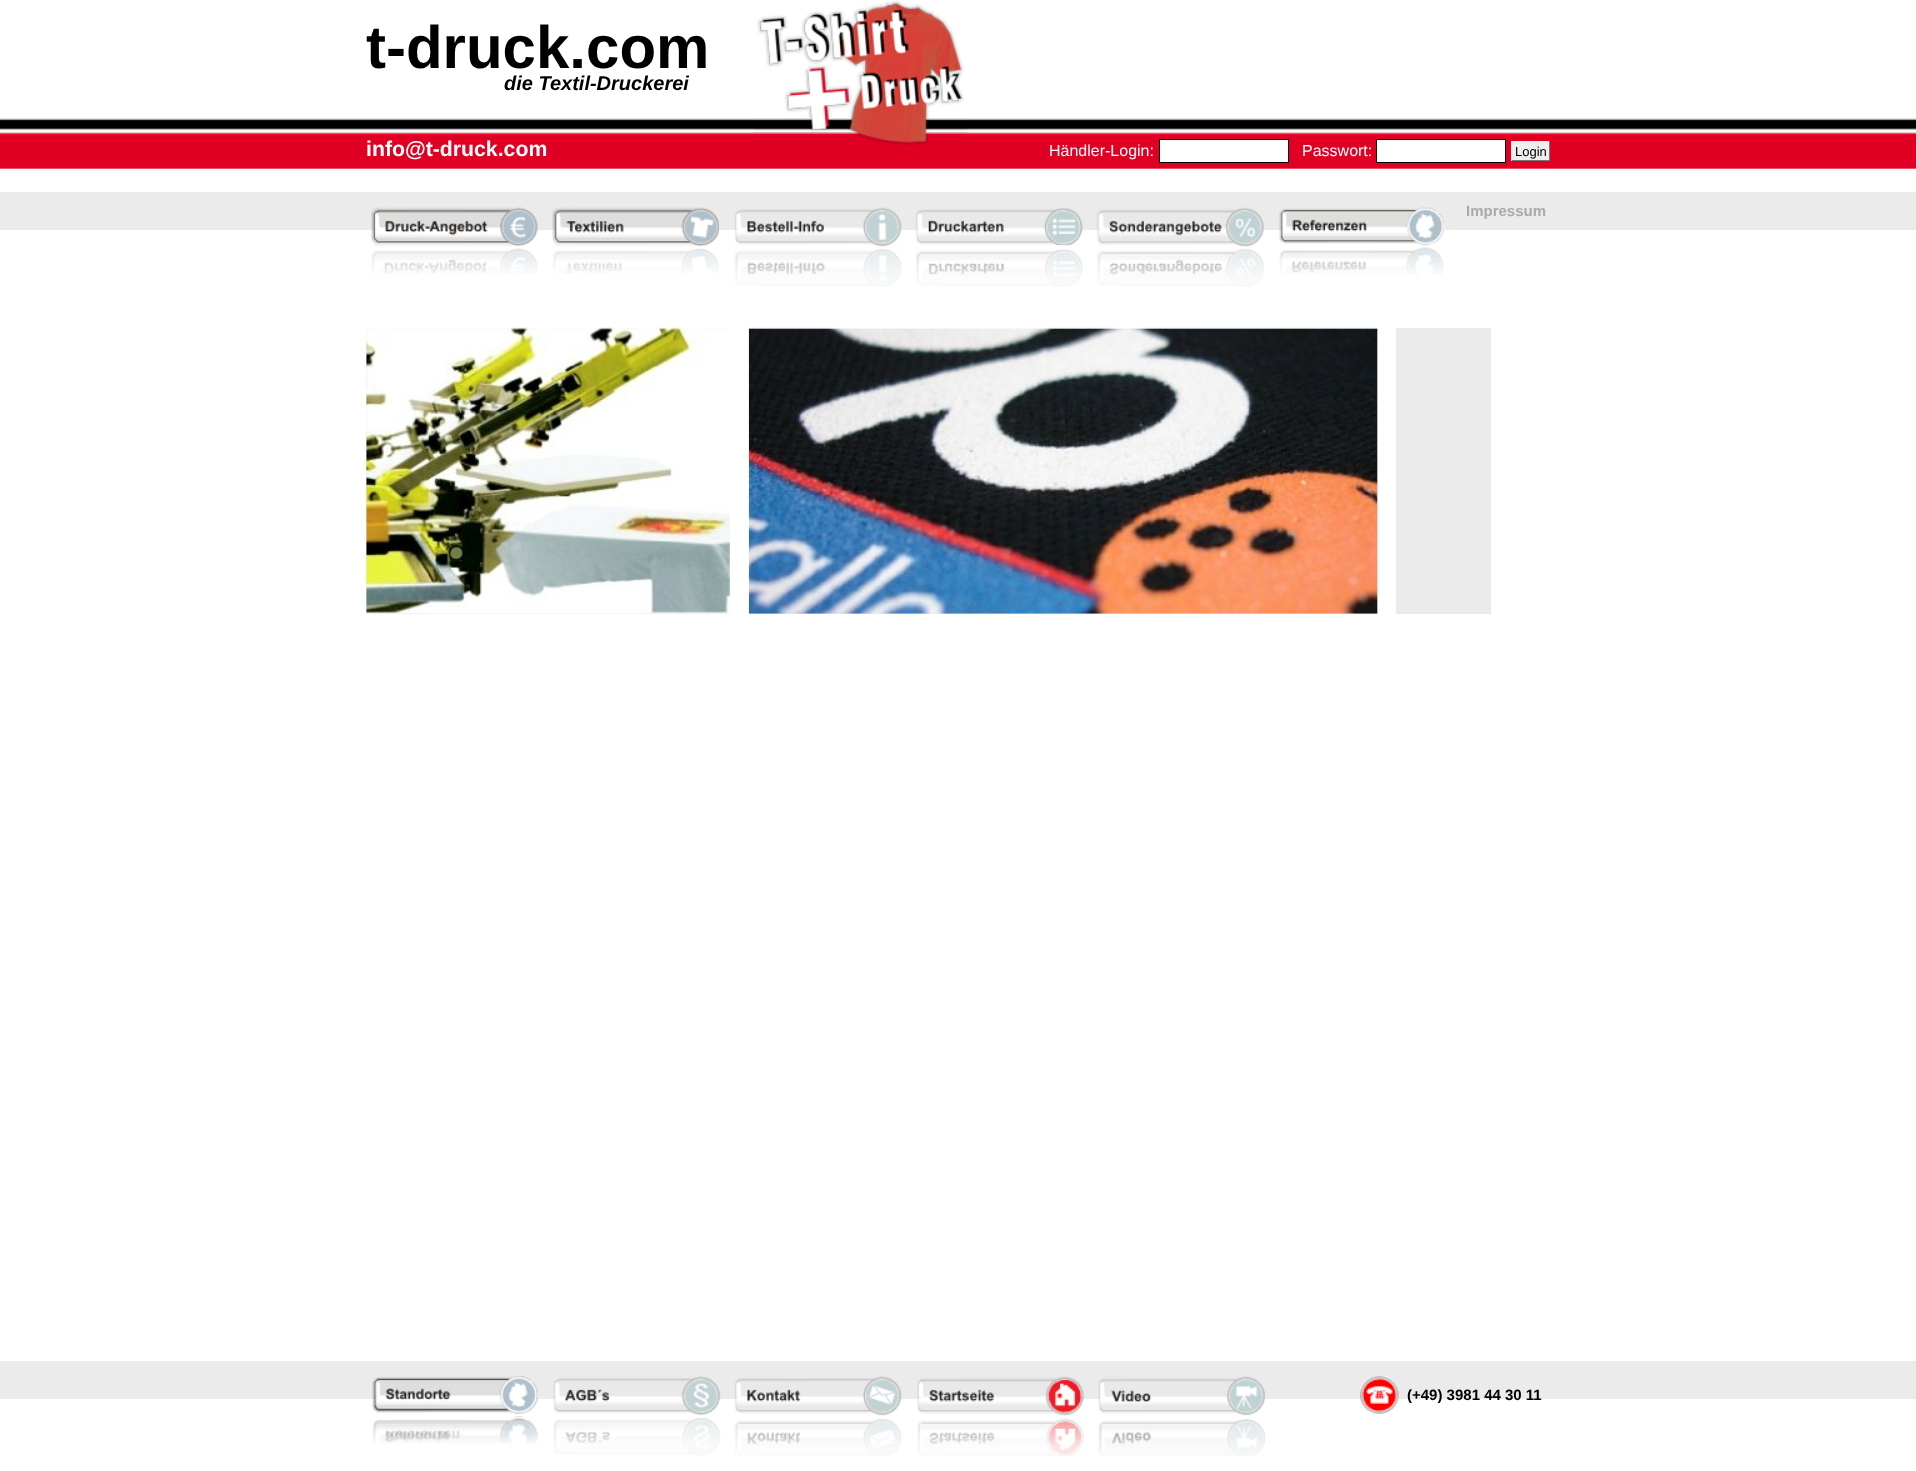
<svg xmlns="http://www.w3.org/2000/svg" width="1916" height="1471">
<style>
.a{font:bold 60px Liberation Sans;fill:#000}
.b{font:italic bold 20px Liberation Sans;fill:#000}
.c{font:bold 21.25px Liberation Sans;fill:#fff}
.d{font:16px Liberation Sans;fill:#fff}
.e{font:13px Liberation Sans;fill:#000}
.f{font:bold 15px Liberation Sans;fill:#aaa}
.g{font:bold 15px Liberation Sans;fill:#000}
</style>
<rect width="100%" height="100%" fill="#fff"/>
<image href="1.png" x="0" y="118" width="1916" height="52"/>
<image href="2.png" x="753" y="0" width="215" height="146"/>
<path fill="#fff" stroke="#000" d="M1159.5 139.5h129v23H1159.5z"/>
<path fill="#fff" stroke="#000" d="M1376.5 139.5h129v23H1376.5z"/>
<path fill="#efefef" d="M1512 141h37v19H1512z"/>
<path fill="#777" d="M1549 141h1v20H1549z"/>
<path fill="#777" d="M1511 160h39v1H1511z"/>
<path fill="#eee" d="M1511 141h1v20H1511z"/>
<path fill="#ebebeb" d="M0 192h1916v38H0z"/>
<image href="3.png" x="371" y="207" width="167" height="67"/>
<image href="4.png" x="552" y="207" width="167" height="67"/>
<image href="5.png" x="734" y="207" width="168" height="80"/>
<image href="6.png" x="915" y="207" width="168" height="80"/>
<image href="7.png" x="1096" y="207" width="168" height="80"/>
<image href="8.png" x="1279" y="207" width="165" height="68"/>
<path fill="#ebebeb" d="M366 328h364v286H366z"/>
<image href="9.png" x="366" y="327" width="364" height="287"/>
<path fill="#ebebeb" d="M749 328h629v286H749z"/>
<image href="10.png" x="748" y="327" width="630" height="287"/>
<path fill="#ebebeb" d="M1396 328h95v286H1396z"/>
<path fill="#ebebeb" d="M0 1361h1916v38H0z"/>
<image href="11.png" x="372" y="1376" width="166" height="68"/>
<image href="12.png" x="553" y="1376" width="168" height="80"/>
<image href="13.png" x="734" y="1376" width="168" height="80"/>
<image href="14.png" x="917" y="1376" width="167" height="80"/>
<image href="15.png" x="1098" y="1376" width="167" height="80"/>
<image href="16.png" x="1360" y="1376" width="39" height="38"/>
<text class="a" x="366" y="68">t-druck.com</text>
<text class="b" x="504" y="90">die Textil-Druckerei</text>
<text class="c" x="366" y="156">info@t-druck.com</text>
<text class="d" x="1049" y="156">Händler-Login:</text>
<text class="d" x="1302" y="156">Passwort:</text>
<text class="e" x="1515" y="156">Login</text>
<text class="f" x="1466" y="216">Impressum</text>
<text class="g" x="1407" y="1400">(+49) 3981 44 30 11</text>
</svg>
